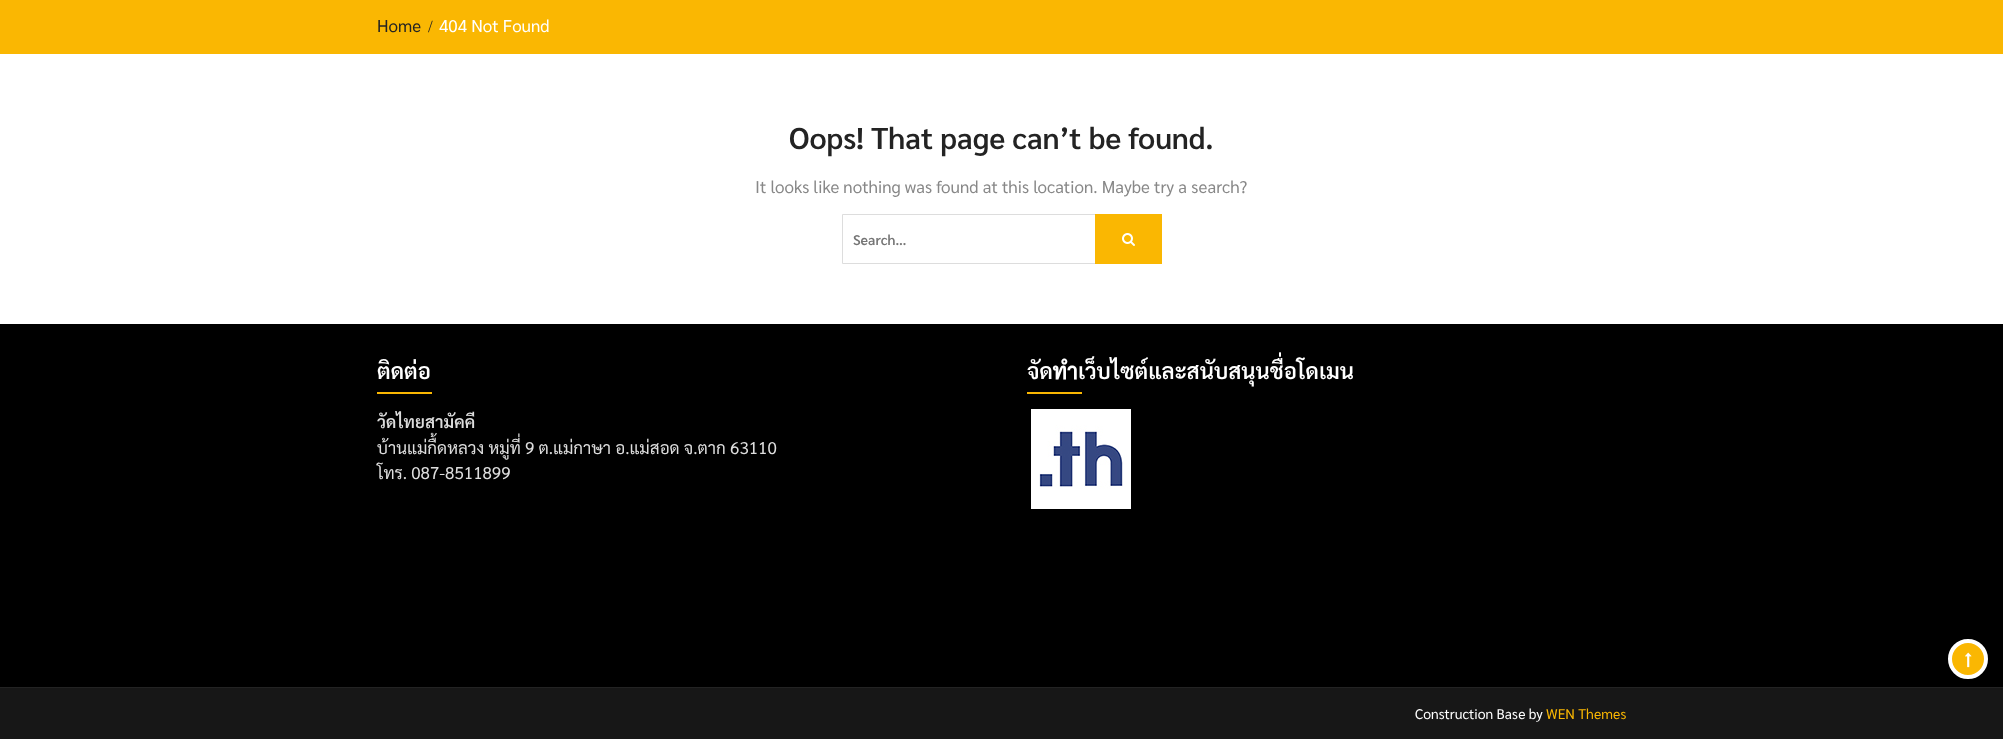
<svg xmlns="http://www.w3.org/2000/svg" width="2003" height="739">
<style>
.a{font:17px Sarabun;fill:#232323}
.b{font:17px Liberation Serif;fill:#232323}
.c{font:17px Sarabun;fill:#fff}
.d{font:600 30px Sarabun;fill:#232323}
.e{font:17px Sarabun;fill:#888}
.f{font:600 14px Sarabun;fill:#757575}
.g{font:600 22px Sarabun;fill:#fff}
.h{font:600 17px Sarabun;fill:#ddd}
.i{font:17px Sarabun;fill:#ddd}
.j{font:14px Sarabun;fill:#fff}
.k{font:14px Sarabun;fill:#fab702}
</style>
<rect width="100%" height="100%" fill="#fff"/>
<path fill="#fab702" d="M0 0h2003v54H0z"/>
<path fill="none" stroke="#ddd" d="M842.5 214.5h319v49H842.5z"/>
<path fill="#fab702" d="M1095 214h67v50H1095z"/>
<image href="1.png" x="1122" y="233" width="13" height="13"/>
<path fill="#000" d="M0 324h2003v363H0z"/>
<path fill="#fab702" d="M377 392h55v2H377z"/>
<path fill="#fab702" d="M1027 392h55v2H1027z"/>
<image href="2.png" x="1031" y="409" width="100" height="100"/>
<path fill="#171717" d="M0 688h2003v51H0z"/>
<path fill="#232323" d="M0 687h2003v1H0z"/>
<circle fill="#fab702" stroke="#fff" stroke-width="4" cx="1968" cy="659" r="18"/>
<image href="3.png" x="1965" y="652" width="7" height="16"/>
<text class="a" x="377" y="32">Home</text>
<text class="b" x="428" y="32">/</text>
<text class="c" x="439" y="32">404 Not Found</text>
<text class="d" x="789" y="149">Oops! That page can’t be found.</text>
<text class="e" x="755" y="193">It looks like nothing was found at this location. Maybe try a search?</text>
<text class="f" x="853" y="245">Search…</text>
<text class="g" x="377" y="379">ติดต่อ</text>
<text class="h" x="377" y="428">วัดไทยสามัคคี</text>
<text class="i" x="377" y="454">บ้านแม่กื้ดหลวง หมู่ที่ 9 ต.แม่กาษา อ.แม่สอด จ.ตาก 63110</text>
<text class="i" x="377" y="479">โทร. 087-8511899</text>
<text class="g" x="1027" y="379">จัดทำเว็บไซต์และสนับสนุนชื่อโดเมน</text>
<text class="j" x="1415" y="719">Construction Base by</text>
<text class="k" x="1546" y="719">WEN Themes</text>
</svg>
